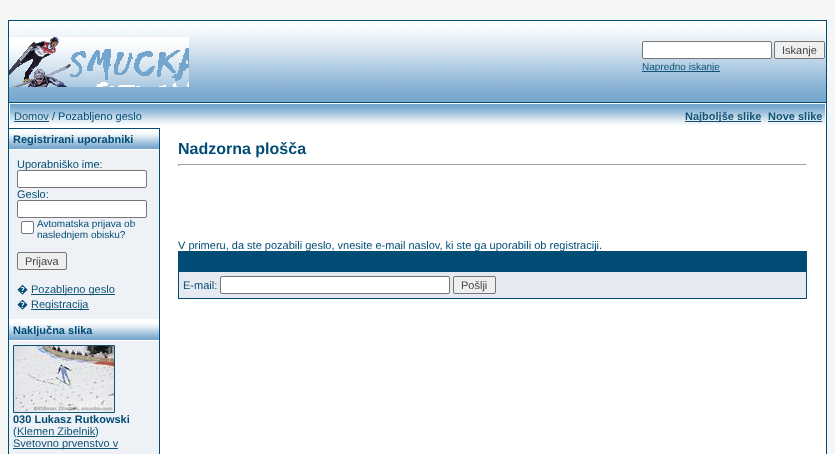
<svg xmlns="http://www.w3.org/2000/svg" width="835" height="454">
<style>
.a{font:11px Liberation Sans;fill:#444}
.b{font:10px Liberation Sans;fill:#0f5475}
.c{font:11px Liberation Sans;fill:#0f5475}
.d{font:11px Liberation Sans;fill:#004c75}
.e{font:bold 11px Liberation Sans;fill:#0f5475}
.f{font:bold 11px Liberation Sans;fill:#004c75}
.g{font:10px Liberation Sans;fill:#004c75}
.h{font:11px Noto Sans;fill:#004c75}
.i{font:bold 16px Liberation Sans;fill:#004c75}
</style>
<rect width="100%" height="100%" fill="#f5f6f6"/>
<image href="1.png" x="9" y="21" width="817" height="81"/>
<path fill="#004c75" d="M8 20h819v1H8z"/>
<path fill="#004c75" d="M8 20h1v82H8z"/>
<image href="2.png" x="9" y="37" width="180" height="50"/>
<path fill="#004c75" d="M826 20h1v82H826z"/>
<rect fill="#fff" stroke="#767676" x="642.5" y="41.5" width="129" height="17" rx="1.5"/>
<rect fill="#efefef" stroke="#767676" x="774.5" y="41.5" width="50" height="17" rx="1.5"/>
<path fill="#0f5475" d="M642 71h78v1H642z"/>
<path fill="#004c75" d="M8 102h819v352H8z"/>
<path fill="#fff" d="M9 103h817v351H9z"/>
<image href="3.png" x="10" y="104" width="815" height="21"/>
<path fill="#0f5475" d="M14 121h35v1H14z"/>
<path fill="#0f5475" d="M685 121h76v1H685z"/>
<path fill="#0f5475" d="M768 121h54v1H768z"/>
<path fill="#eef1f6" d="M9 150h150v304H9z"/>
<path fill="#004c75" d="M9 128h150v1H9z"/>
<image href="4.png" x="9" y="129" width="150" height="20"/>
<rect fill="#fff" stroke="#767676" x="17.5" y="200.5" width="129" height="17" rx="1.5"/>
<rect fill="#fff" stroke="#767676" x="21.5" y="221.5" width="12" height="12" rx="1.5"/>
<rect fill="#efefef" stroke="#767676" x="17.5" y="252.5" width="49" height="17" rx="1.5"/>
<path fill="#0f5475" d="M31 294h84v1H31z"/>
<path fill="#0f5475" d="M31 309h58v1H31z"/>
<path fill="#fff" d="M9 319h150v1H9z"/>
<image href="4.png" x="9" y="320" width="150" height="20"/>
<path fill="#fff" d="M9 340h150v1H9z"/>
<path fill="none" stroke="#0f5475" d="M13.5 345.5h101v67H13.5z"/>
<image href="5.png" x="14" y="346" width="100" height="66"/>
<path fill="#0f5475" d="M17 436h78v1H17z"/>
<path fill="#0f5475" d="M13 448h105v1H13z"/>
<path fill="#004c75" d="M159 128h1v326H159z"/>
<path fill="#9f9f9f" d="M178 164h629v1H178z"/>
<path fill="#eee" d="M806 164h1v2H806z"/>
<path fill="#9f9f9f" d="M178 164h1v2H178z"/>
<path fill="#004c75" d="M178 251h629v48H178z"/>
<path fill="#e5e9f2" d="M179 272h627v26H179z"/>
<rect fill="#fff" stroke="#767676" x="220.5" y="276.5" width="229" height="17" rx="1.5"/>
<rect fill="#efefef" stroke="#767676" x="453.5" y="276.5" width="42" height="17" rx="1.5"/>
<text class="a" x="782" y="54">Iskanje</text>
<text class="b" x="642" y="70">Napredno iskanje</text>
<text class="c" x="14" y="120">Domov</text>
<text class="d" x="52" y="120">/ Pozabljeno geslo</text>
<text class="e" x="685" y="120">Najboljše slike</text>
<text class="e" x="768" y="120">Nove slike</text>
<text class="f" x="13" y="143">Registrirani uporabniki</text>
<text class="d" x="17" y="168">Uporabniško ime:</text>
<rect fill="#fff" stroke="#767676" x="17.5" y="170.5" width="129" height="17" rx="1.5"/>
<text class="d" x="17" y="198">Geslo:</text>
<text class="g" x="37" y="227">Avtomatska prijava ob</text>
<text class="g" x="37" y="238">naslednjem obisku?</text>
<text class="a" x="25" y="265">Prijava</text>
<text class="h" x="17" y="293">�</text>
<text class="c" x="31" y="293">Pozabljeno geslo</text>
<text class="h" x="17" y="308">�</text>
<text class="c" x="31" y="308">Registracija</text>
<text class="f" x="13" y="334">Naključna slika</text>
<text class="f" x="13" y="423">030 Lukasz Rutkowski</text>
<text class="d" x="13" y="435">(</text>
<text class="c" x="17" y="435">Klemen Zibelnik</text>
<text class="d" x="95" y="435">)</text>
<text class="c" x="13" y="447">Svetovno prvenstvo v</text>
<text class="i" x="178" y="154">Nadzorna plošča</text>
<text class="d" x="178" y="249">V primeru, da ste pozabili geslo, vnesite e-mail naslov, ki ste ga uporabili ob registraciji.</text>
<text class="d" x="183" y="289">E-mail:</text>
<text class="a" x="461" y="289">Pošlji</text>
</svg>
